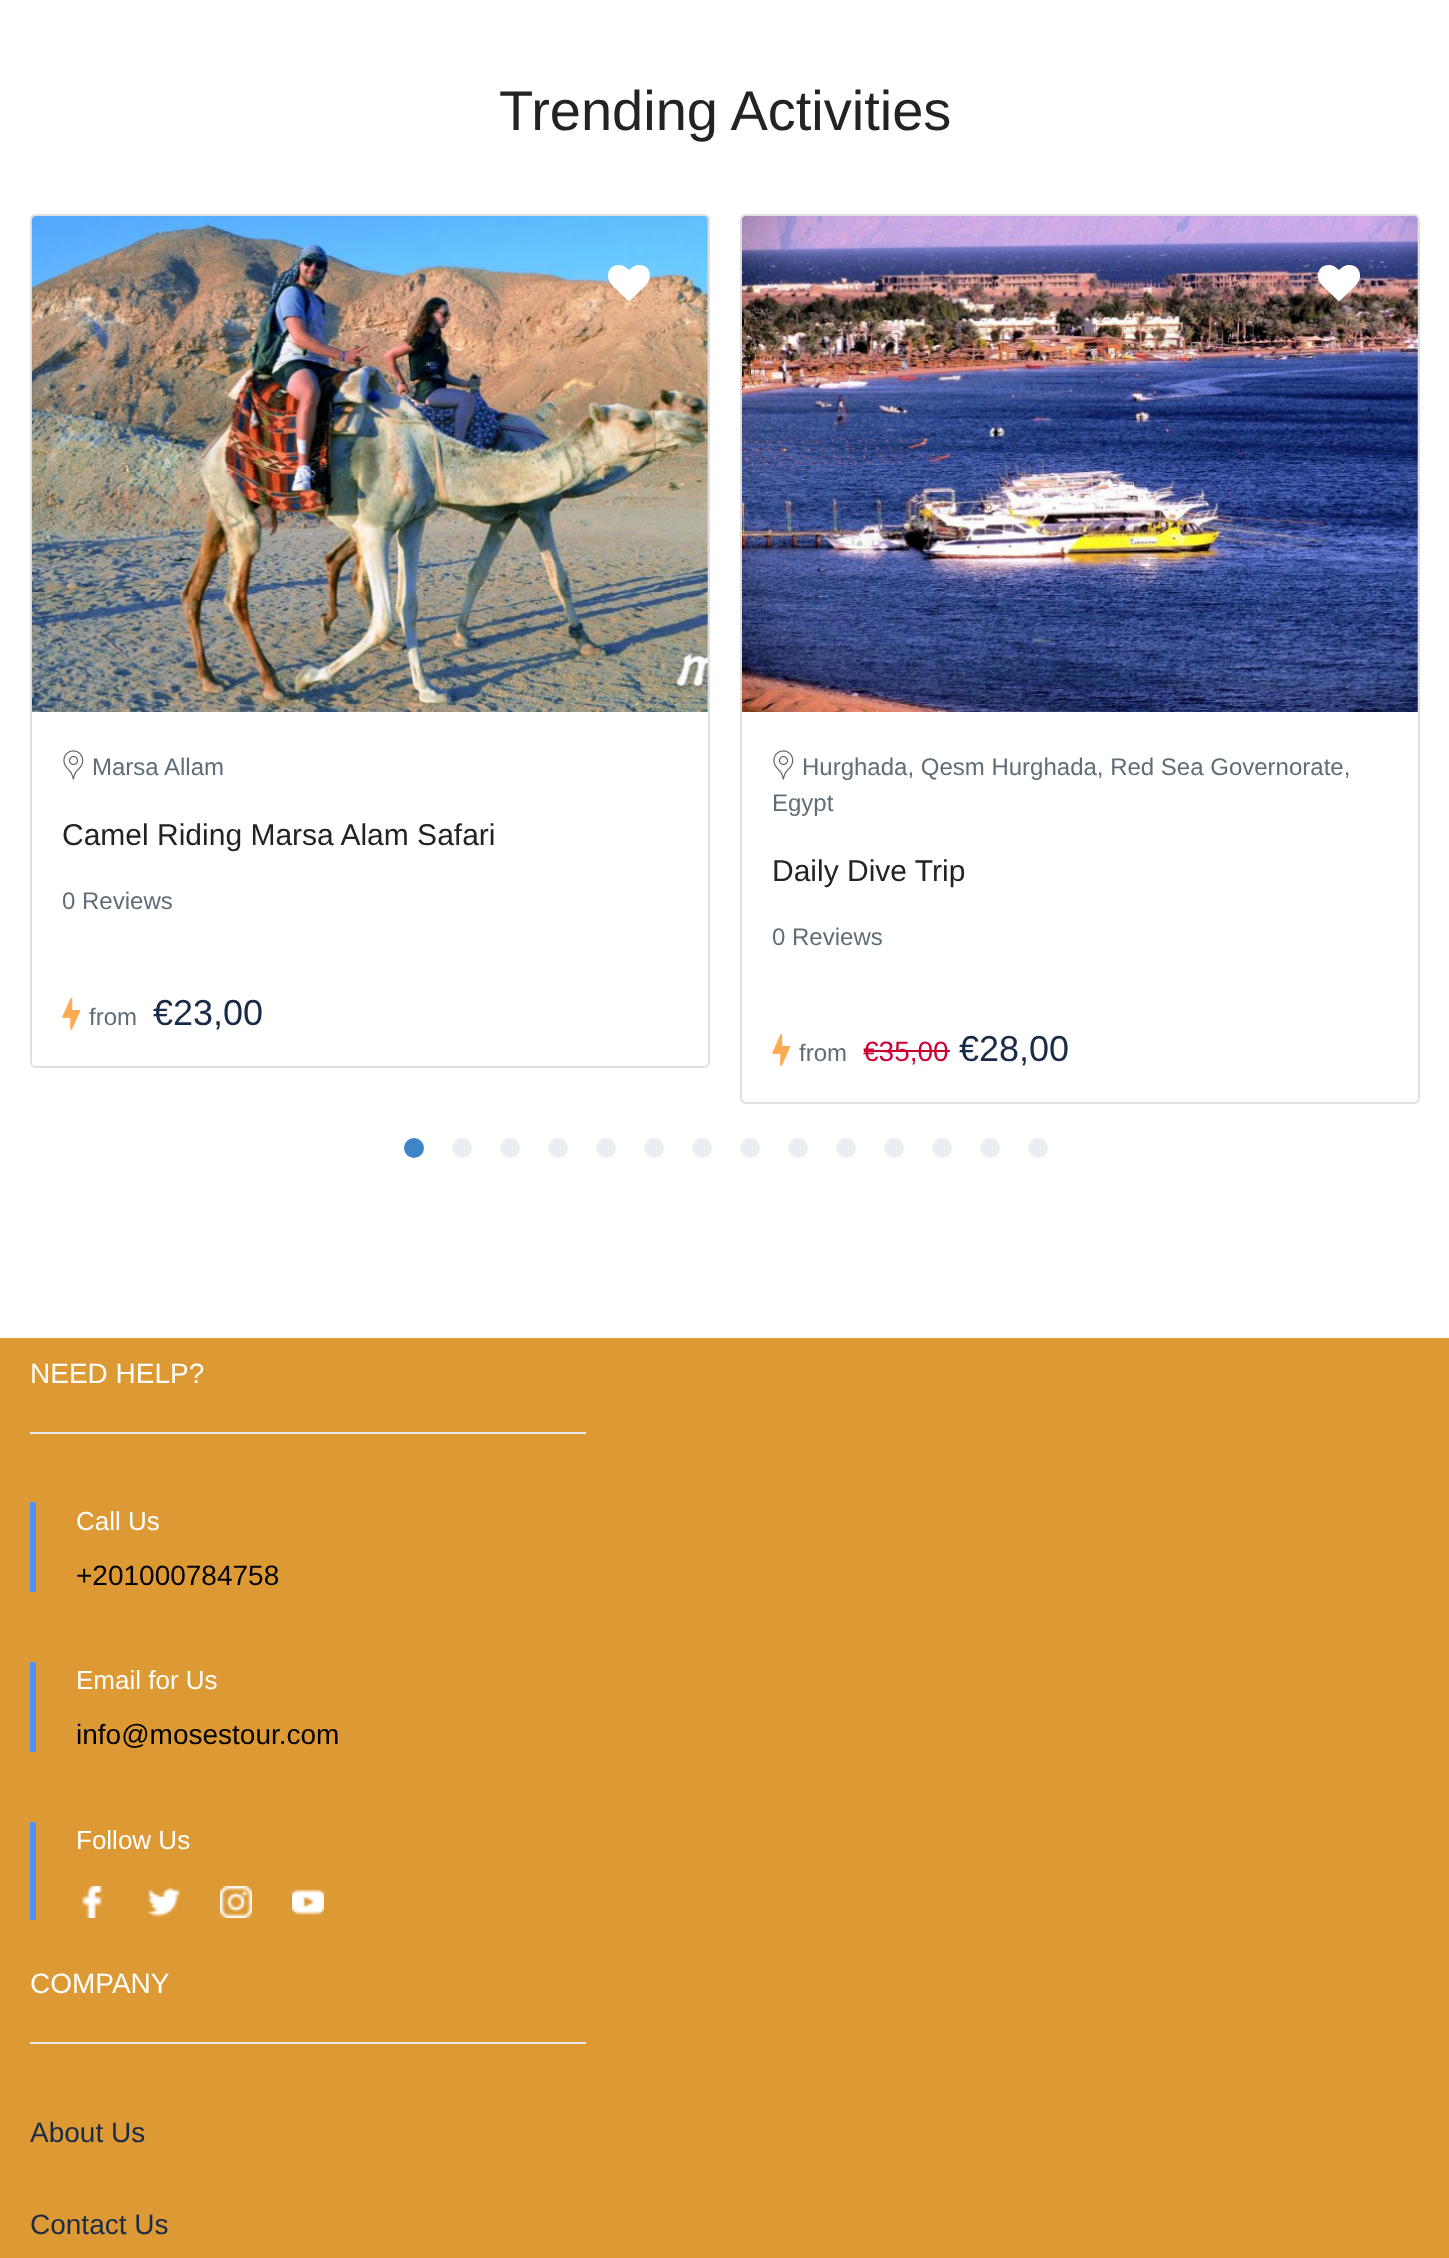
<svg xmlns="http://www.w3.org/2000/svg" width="1449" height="2258">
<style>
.a{font:56px Liberation Sans;fill:#232323}
.b{font:24px Liberation Sans;fill:#5e6d77}
.c{font:30px Liberation Sans;fill:#232323}
.d{font:36px Liberation Sans;fill:#1a2b48}
.e{font:28px Liberation Sans;fill:#c03}
.f{font:28px Liberation Sans;fill:#fff}
.g{font:26px Liberation Sans;fill:#fff}
.h{font:28px Liberation Sans;fill:#000}
.i{font:28px Liberation Sans;fill:#1a2b48}
</style>
<rect width="100%" height="100%" fill="#fff"/>
<rect fill="none" stroke="#dfdfdf" stroke-width="2" x="31" y="215" width="678" height="852" rx="5"/>
<image href="1.png" x="32" y="216" width="676" height="496"/>
<image href="2.png" x="608" y="265" width="42" height="36"/>
<image href="3.png" x="63" y="750" width="21" height="30"/>
<image href="4.png" x="62" y="998" width="19" height="32"/>
<rect fill="none" stroke="#dfdfdf" stroke-width="2" x="741" y="215" width="678" height="888" rx="5"/>
<image href="5.png" x="742" y="216" width="676" height="496"/>
<image href="6.png" x="1318" y="265" width="42" height="36"/>
<image href="3.png" x="773" y="750" width="21" height="30"/>
<image href="4.png" x="772" y="1034" width="19" height="32"/>
<path fill="#c03" d="M864 1050h86v2H864z"/>
<circle fill="#3d85c6" cx="414" cy="1148" r="10"/>
<circle fill="#eaeef3" cx="462" cy="1148" r="10"/>
<circle fill="#eaeef3" cx="510" cy="1148" r="10"/>
<circle fill="#eaeef3" cx="558" cy="1148" r="10"/>
<circle fill="#eaeef3" cx="606" cy="1148" r="10"/>
<circle fill="#eaeef3" cx="654" cy="1148" r="10"/>
<circle fill="#eaeef3" cx="702" cy="1148" r="10"/>
<circle fill="#eaeef3" cx="750" cy="1148" r="10"/>
<circle fill="#eaeef3" cx="798" cy="1148" r="10"/>
<circle fill="#eaeef3" cx="846" cy="1148" r="10"/>
<circle fill="#eaeef3" cx="894" cy="1148" r="10"/>
<circle fill="#eaeef3" cx="942" cy="1148" r="10"/>
<circle fill="#eaeef3" cx="990" cy="1148" r="10"/>
<circle fill="#eaeef3" cx="1038" cy="1148" r="10"/>
<path fill="#d93" d="M0 1338h1449v920H0z"/>
<path fill="#eaeaea" d="M30 1432h556v2H30z"/>
<path fill="#5191fa" d="M30 1502h6v90H30z"/>
<path fill="#5191fa" d="M30 1662h6v90H30z"/>
<path fill="#5191fa" d="M30 1822h6v98H30z"/>
<image href="7.png" x="81" y="1886" width="22" height="32"/>
<image href="8.png" x="148" y="1887" width="32" height="30"/>
<image href="9.png" x="220" y="1886" width="32" height="32"/>
<image href="10.png" x="292" y="1889" width="32" height="26"/>
<path fill="#eaeaea" d="M30 2042h556v2H30z"/>
<text class="a" x="499" y="130">Trending Activities</text>
<text class="b" x="92" y="775">Marsa Allam</text>
<text class="c" x="62" y="845">Camel Riding Marsa Alam Safari</text>
<text class="b" x="62" y="909">0 Reviews</text>
<text class="b" x="89" y="1025">from</text>
<text class="d" x="153" y="1025">€23,00</text>
<text class="b" x="802" y="775">Hurghada, Qesm Hurghada, Red Sea Governorate,</text>
<text class="b" x="772" y="811">Egypt</text>
<text class="c" x="772" y="881">Daily Dive Trip</text>
<text class="b" x="772" y="945">0 Reviews</text>
<text class="b" x="799" y="1061">from</text>
<text class="e" x="863" y="1061">€35,00</text>
<text class="d" x="959" y="1061">€28,00</text>
<text class="f" x="30" y="1383">NEED HELP?</text>
<text class="g" x="76" y="1530">Call Us</text>
<text class="h" x="76" y="1585">+201000784758</text>
<text class="g" x="76" y="1689">Email for Us</text>
<text class="h" x="76" y="1744">info@mosestour.com</text>
<text class="g" x="76" y="1849">Follow Us</text>
<text class="f" x="30" y="1993">COMPANY</text>
<text class="i" x="30" y="2142">About Us</text>
<text class="i" x="30" y="2234">Contact Us</text>
</svg>
